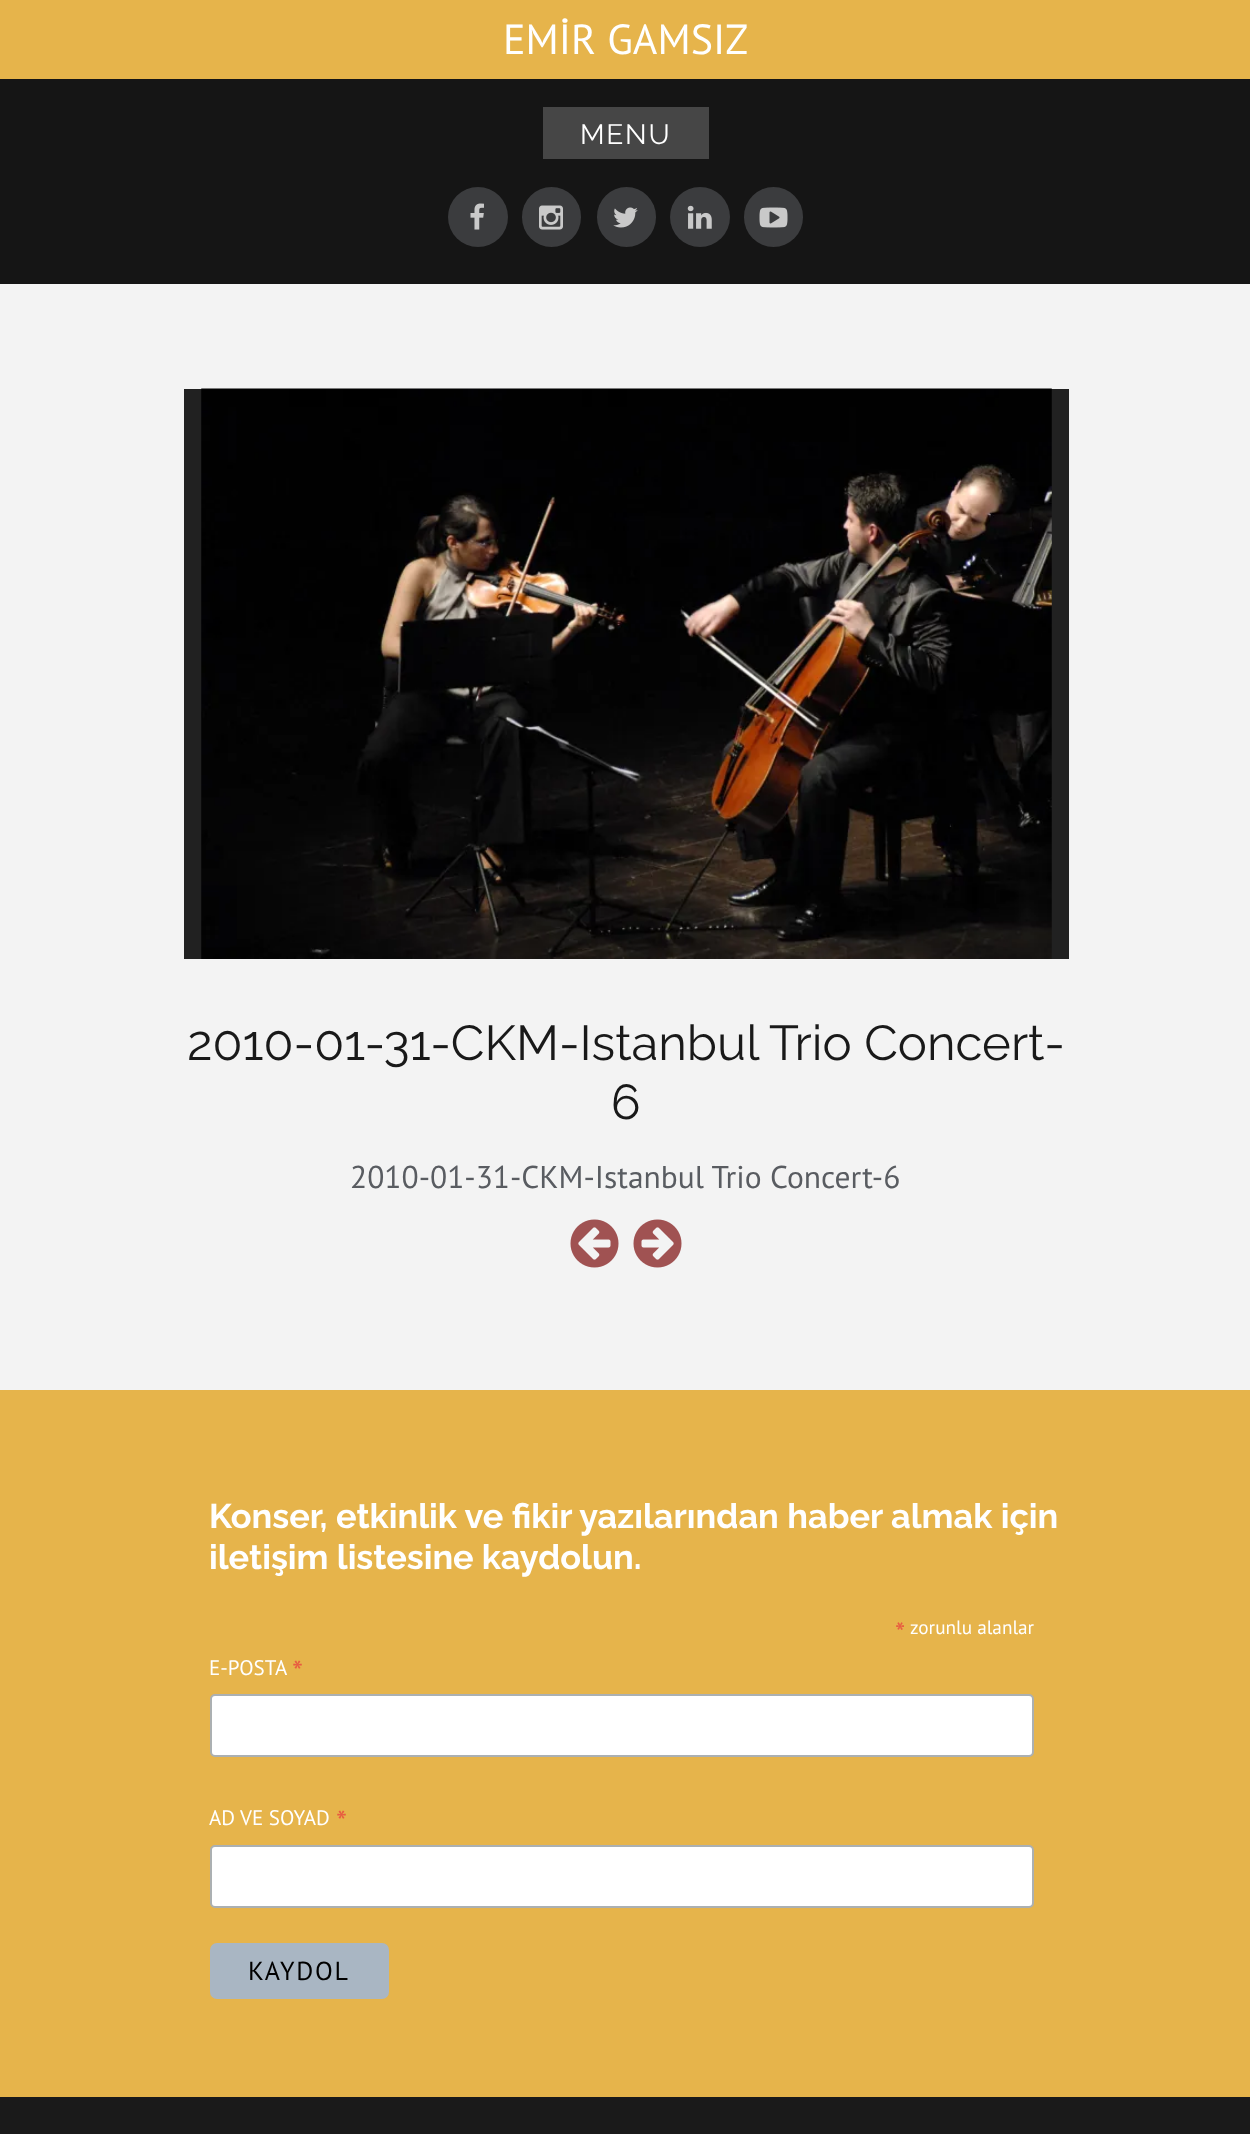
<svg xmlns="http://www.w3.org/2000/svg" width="1250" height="2134">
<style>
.a{font:42px PT Sans;fill:#fff}
.b{font:28px Raleway;letter-spacing:1.75px;fill:#fff}
.c{font:49px Raleway;fill:#191919}
.d{font:31.5px PT Sans;fill:#595c61}
.e{font:bold 34.3px Raleway;fill:#fff}
.f{font:29px PT Sans;fill:#e85c41}
.g{font:19.25px PT Sans;fill:#fff}
.h{font:21px PT Sans;fill:#fff}
.i{font:31.5px PT Sans;fill:#e85c41}
.j{font:26px PT Sans;letter-spacing:1.75px;fill:#000}
</style>
<rect width="100%" height="100%" fill="#f3f3f3"/>
<path fill="#151515" d="M0 79h1250v205H0z"/>
<path fill="#e6b44b" d="M0 0h1250v79H0z"/>
<path fill="#464646" d="M543 107h166v52H543z"/>
<circle fill="#3b3c3e" cx="478" cy="217" r="30"/>
<image href="1.png" x="470" y="203" width="14" height="27"/>
<rect fill="#3b3c3e" x="522" y="187" width="59" height="60" rx="29.5"/>
<image href="2.png" x="539" y="205" width="24" height="25"/>
<rect fill="#3b3c3e" x="597" y="187" width="59" height="60" rx="29.5"/>
<image href="3.png" x="613" y="207" width="25" height="21"/>
<circle fill="#3b3c3e" cx="700" cy="217" r="30"/>
<image href="4.png" x="687" y="205" width="25" height="24"/>
<rect fill="#3b3c3e" x="744" y="187" width="59" height="60" rx="29.5"/>
<image href="5.png" x="759" y="207" width="29" height="21"/>
<path fill="#212121" d="M184 389h885v570H184z"/>
<image href="6.png" x="201" y="388" width="851" height="571"/>
<image href="7.png" x="570" y="1219" width="49" height="49"/>
<image href="8.png" x="633" y="1219" width="49" height="49"/>
<path fill="#e6b44b" d="M0 1390h1250v707H0z"/>
<rect fill="#fff" stroke="#abb0b2" stroke-width="2" x="211" y="1695" width="822" height="61" rx="4"/>
<rect fill="#fff" stroke="#abb0b2" stroke-width="2" x="211" y="1846" width="822" height="61" rx="4"/>
<rect fill="#a9b6c3" x="210" y="1943" width="179" height="56" rx="7"/>
<path fill="#1a1a1a" d="M0 2097h1250v37H0z"/>
<text class="a" x="503" y="54">EMİR GAMSIZ</text>
<text class="b" x="580" y="144">MENU</text>
<text class="c" x="187" y="1060">2010-01-31-CKM-Istanbul Trio Concert-</text>
<text class="c" x="611" y="1119">6</text>
<text class="d" x="350" y="1188">2010-01-31-CKM-Istanbul Trio Concert-6</text>
<text class="e" x="209" y="1528" word-spacing="0.25">Konser, etkinlik ve fikir yazılarından haber almak için</text>
<text class="e" x="209" y="1569">iletişim listesine kaydolun.</text>
<text class="f" x="895" y="1643">*</text>
<text class="g" x="910" y="1634">zorunlu alanlar</text>
<text class="h" x="209" y="1675">E-POSTA</text>
<text class="i" x="292" y="1683">*</text>
<text class="h" x="209" y="1825">AD VE SOYAD</text>
<text class="i" x="336" y="1833">*</text>
<text class="j" x="248" y="1980">KAYDOL</text>
</svg>
